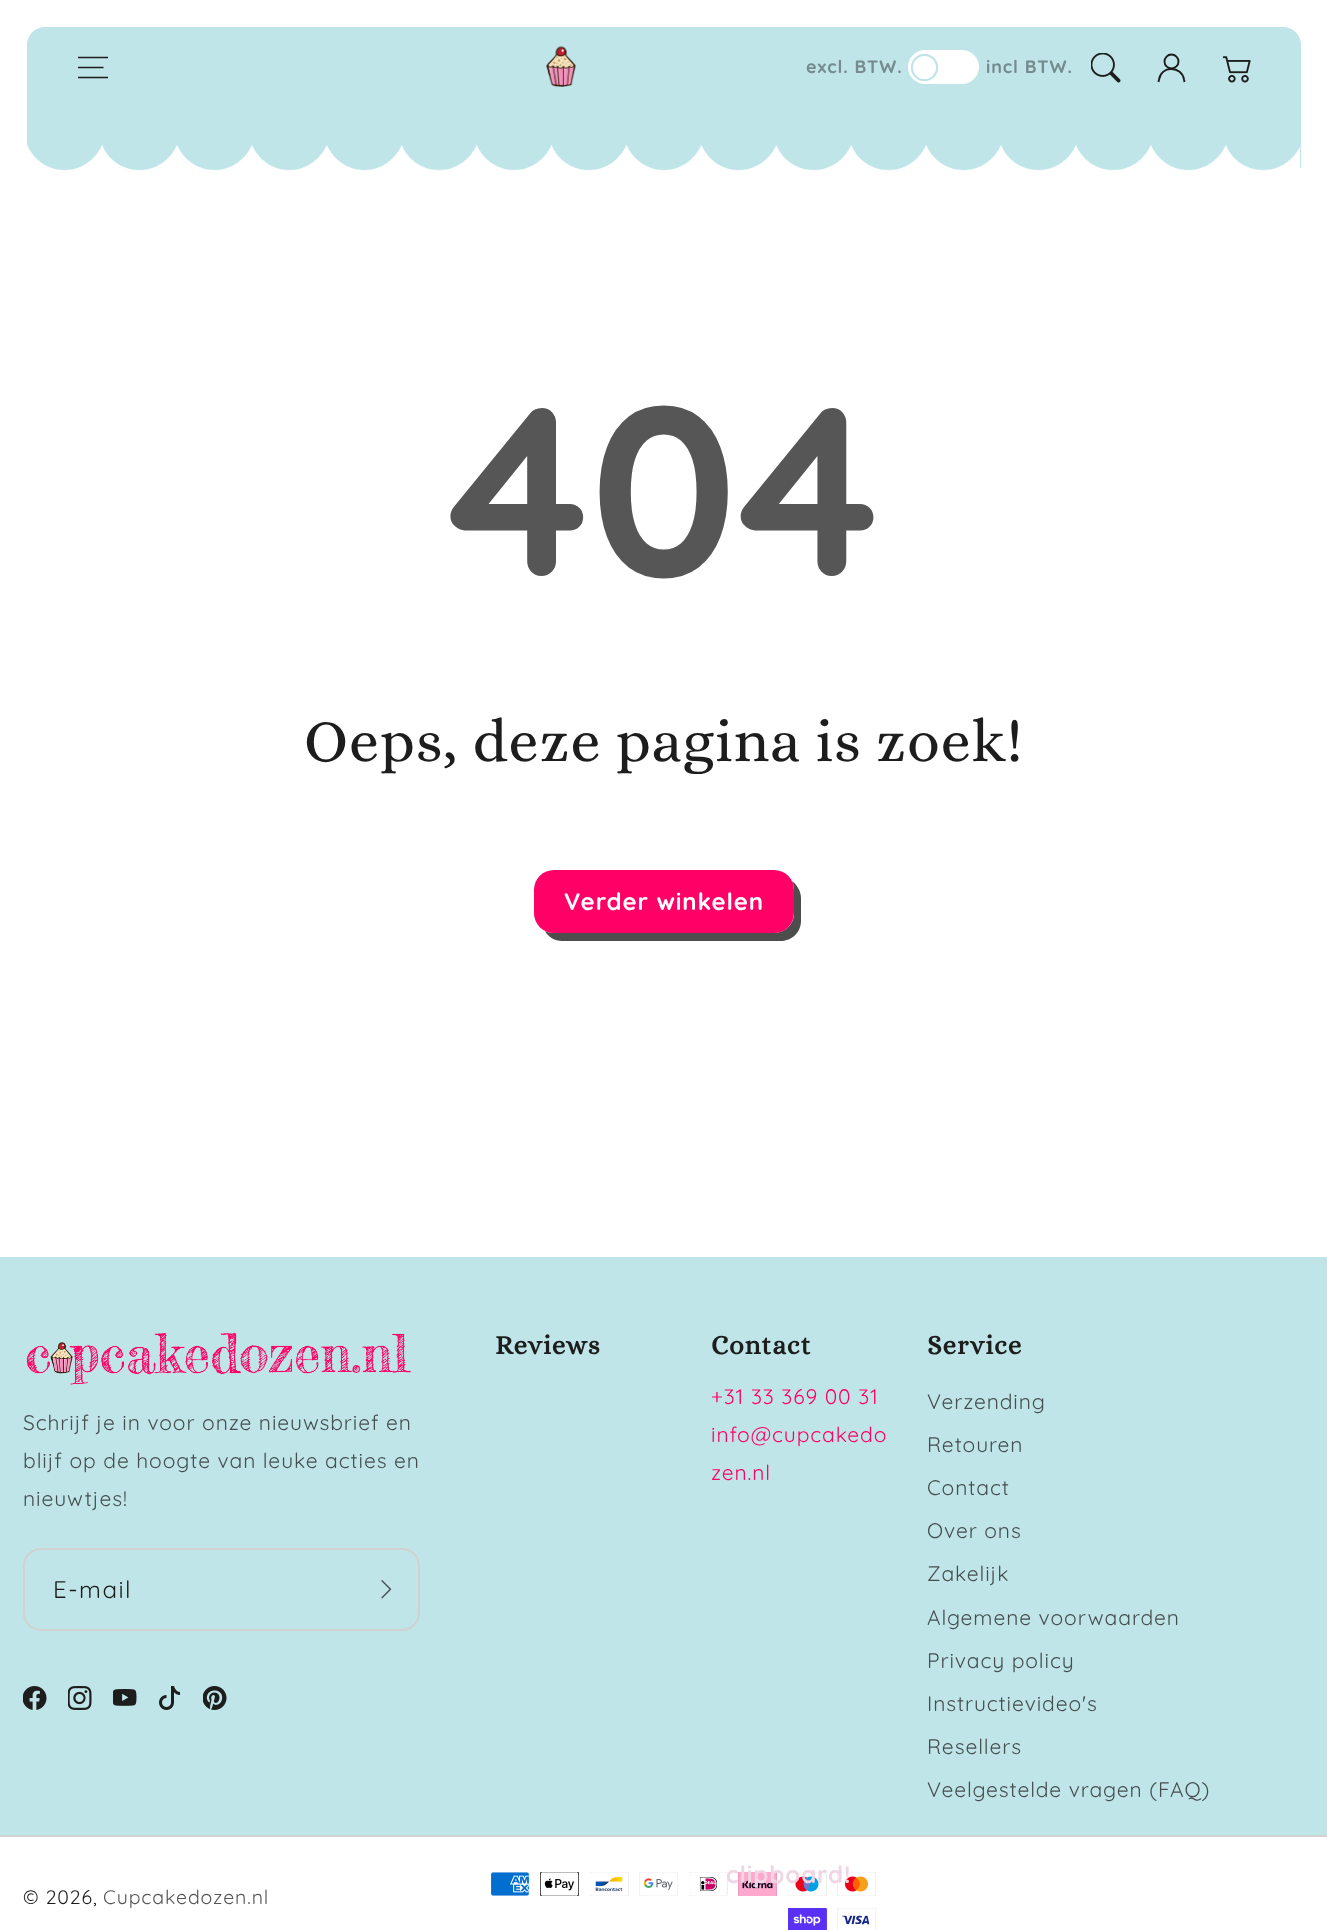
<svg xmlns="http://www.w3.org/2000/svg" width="1327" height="1930">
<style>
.a{font:bold 18px Quicksand;letter-spacing:0.9px;fill:#768b8d}
.b{font:bold 240px Quicksand;letter-spacing:0.9px;fill:#565656}
.c{font:60px Alice;letter-spacing:0.9px;fill:#1d1d1d}
.d{font:bold 24px Quicksand;letter-spacing:0.9px;fill:#fff}
.e{font:21px Quicksand;letter-spacing:0.9px;fill:#464f50}
.f{font:24px Quicksand;letter-spacing:1.5px;fill:#1d1d1d}
.g{font:bold 27px Alice;letter-spacing:0.9px;fill:#1d1d1d}
.h{font:21px Quicksand;letter-spacing:0.9px;fill:#f06}
.i{font:19.5px Quicksand;letter-spacing:0.9px;fill:#1d1d1d}
.j{font:19.5px Quicksand;letter-spacing:0.9px;fill:#565656}
.k{font:bold 24px Quicksand;letter-spacing:0.9px;fill:#efd6e4}
</style>
<rect width="100%" height="100%" fill="#fff"/>
<path fill="#bfe5e8" d="M45 27h1238c10 0 18 8 18 18v63h-1274v-63c0-10 8-18 18-18z"/>
<path fill="none" stroke="#1d1d1d" stroke-width="1.4" d="M78 77.5h30m-30-10h25.5m-25.5-10h30"/>
<image href="1.png" x="546" y="46" width="30" height="41"/>
<rect fill="#fff" stroke="#bfe5e8" stroke-width="2" x="907" y="49" width="73" height="36" rx="18"/>
<circle fill="none" stroke="#bfe5e8" stroke-width="2" cx="924.5" cy="67.5" r="12.5"/>
<circle fill="#fff" stroke="#bfe5e8" stroke-width="2" cx="924.5" cy="67.5" r="12.5"/>
<image href="2.png" x="1091" y="53" width="30" height="30"/>
<circle fill="none" stroke="#1d1d1d" stroke-width="1.9" cx="1171.5" cy="61.5" r="7"/>
<path fill="none" stroke="#1d1d1d" stroke-width="1.9" d="M1158.5 82l.5-2.5c1-6.5 6.5-11 12.5-10.5c6 0 11.5 4 12.5 10.5l.5 2.5"/>
<image href="3.png" x="1223" y="56" width="28" height="27"/>
<path fill="#bfe5e8" d="M27 108v30h1273v30h1v-60z"/>
<image href="4.png" x="27" y="138" width="1273" height="33"/>
<path fill="#4d4d4d" d="M545 931c3 6 10 10 17 10h219c11 0 20-9 20-20v-23c0-7-4-13-9-17c1 3 2 5 2 9v24c0 10-9 19-20 19h-220c-4 0-7-1-9-2z"/>
<rect fill="#f06" x="534" y="870" width="260" height="63" rx="20"/>
<path fill="#bfe5e8" d="M0 1257h1327v578H0z"/>
<image href="5.png" x="26" y="1332" width="385" height="53"/>
<rect fill="none" stroke="#d1d1d1" stroke-width="2" x="24" y="1549" width="395" height="81" rx="17"/>
<image href="6.png" x="381" y="1580" width="11" height="19"/>
<image href="7.png" x="23" y="1686" width="24" height="24"/>
<image href="8.png" x="68" y="1686" width="24" height="24"/>
<image href="9.png" x="113" y="1689" width="24" height="17"/>
<image href="10.png" x="159" y="1686" width="21" height="24"/>
<image href="11.png" x="203" y="1686" width="24" height="24"/>
<path fill="#d1d1d1" d="M0 1835h1327v2H0z"/>
<image href="12.png" x="491" y="1872" width="39" height="24"/>
<image href="13.png" x="540" y="1872" width="39" height="24"/>
<image href="14.png" x="590" y="1872" width="39" height="24"/>
<image href="15.png" x="639" y="1872" width="39" height="24"/>
<image href="16.png" x="689" y="1872" width="39" height="24"/>
<image href="17.png" x="738" y="1872" width="39" height="24"/>
<image href="18.png" x="788" y="1872" width="39" height="24"/>
<image href="19.png" x="837" y="1872" width="39" height="24"/>
<image href="20.png" x="788" y="1908" width="39" height="22"/>
<image href="21.png" x="837" y="1908" width="39" height="22"/>
<text class="a" x="806" y="73">excl. BTW.</text>
<text class="a" x="986" y="73">incl BTW.</text>
<text class="b" x="448" y="576">404</text>
<text class="c" x="304" y="761">Oeps, deze pagina is zoek!</text>
<text class="d" x="564" y="910">Verder winkelen</text>
<text class="e" x="23" y="1430">Schrijf je in voor onze nieuwsbrief en</text>
<text class="e" x="23" y="1468">blijf op de hoogte van leuke acties en</text>
<text class="e" x="23" y="1506">nieuwtjes!</text>
<text class="f" x="53" y="1598">E-mail</text>
<text class="g" x="495" y="1354">Reviews</text>
<text class="g" x="711" y="1354">Contact</text>
<text class="h" x="711" y="1404">+31 33 369 00 31</text>
<text class="h" x="711" y="1442">info@cupcakedo</text>
<text class="h" x="711" y="1480">zen.nl</text>
<text class="g" x="927" y="1354">Service</text>
<text class="e" x="927" y="1409">Verzending</text>
<text class="e" x="927" y="1452">Retouren</text>
<text class="e" x="927" y="1495">Contact</text>
<text class="e" x="927" y="1538">Over ons</text>
<text class="e" x="927" y="1581">Zakelijk</text>
<text class="e" x="927" y="1625">Algemene voorwaarden</text>
<text class="e" x="927" y="1668">Privacy policy</text>
<text class="e" x="927" y="1711">Instructievideo's</text>
<text class="e" x="927" y="1754">Resellers</text>
<text class="e" x="927" y="1797">Veelgestelde vragen (FAQ)</text>
<text class="i" x="23" y="1904">© 2026,</text>
<text class="j" x="103" y="1904">Cupcakedozen.nl</text>
<text class="k" x="726" y="1883">clipboard!</text>
</svg>
